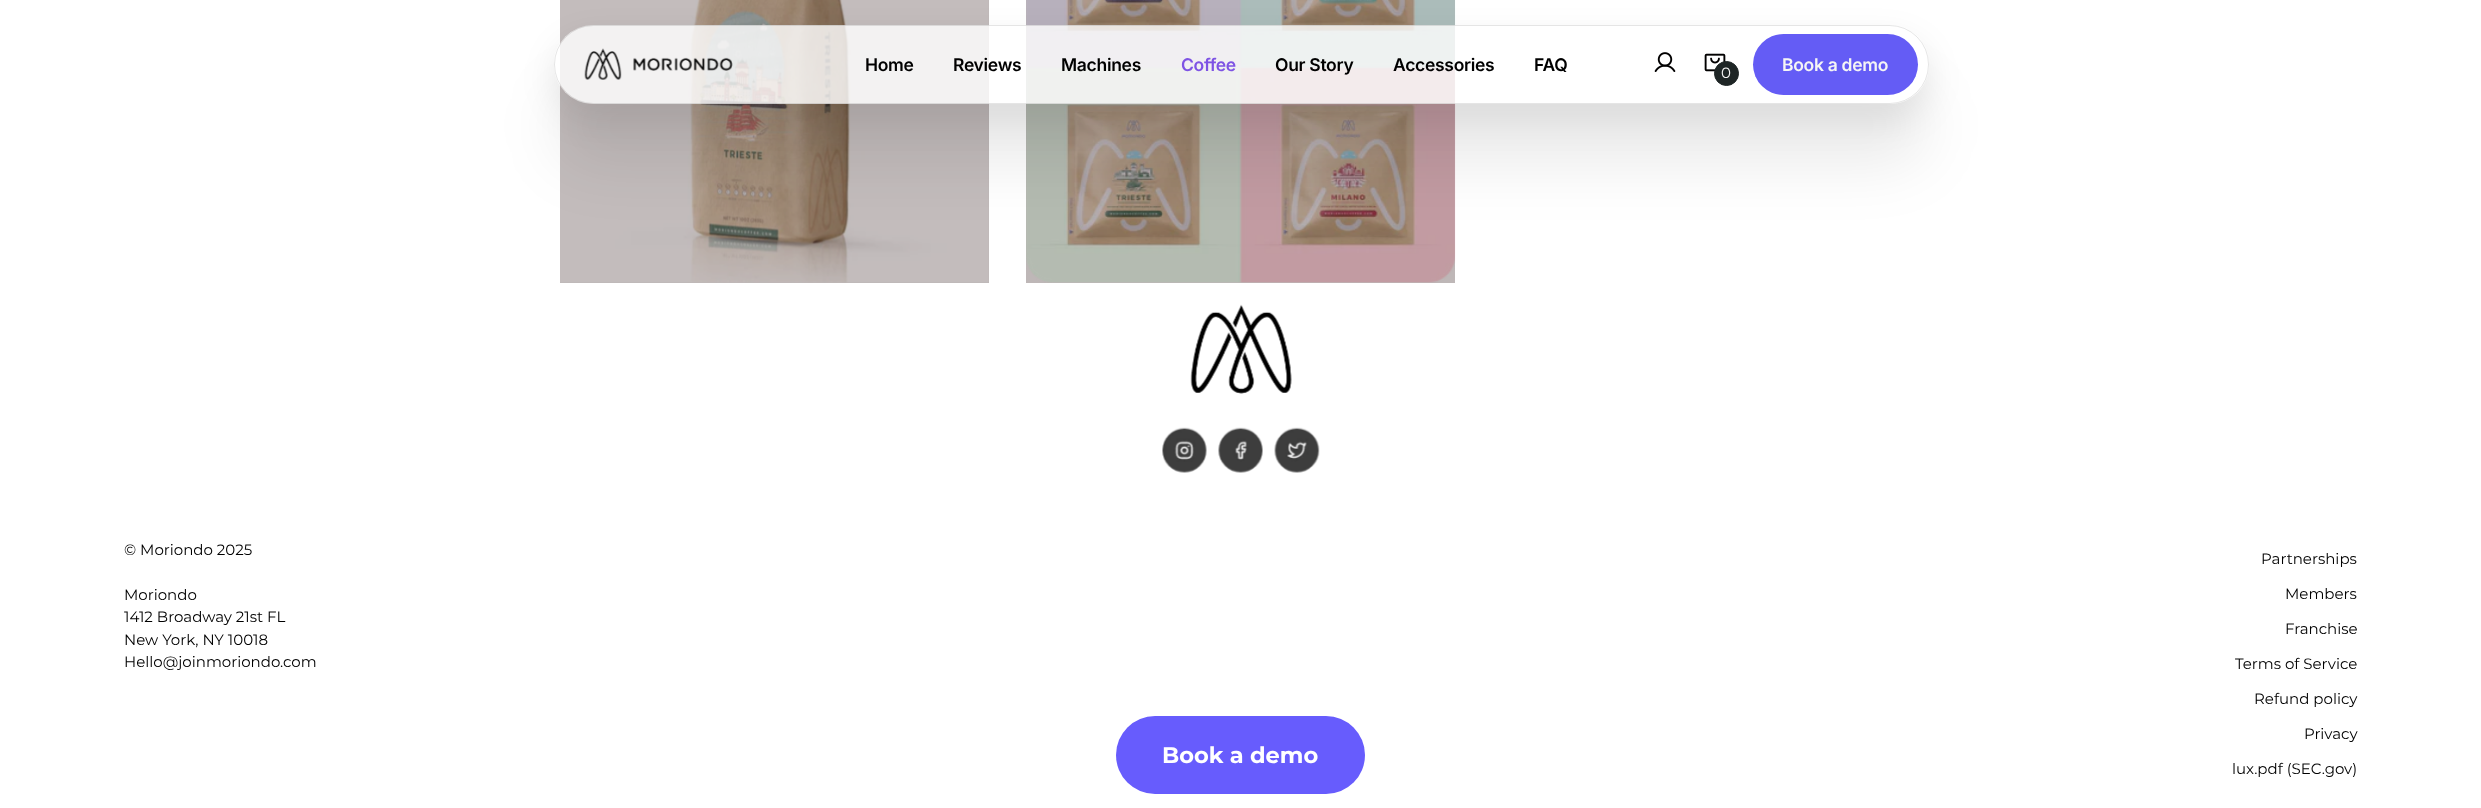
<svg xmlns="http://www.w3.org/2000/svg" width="2481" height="808">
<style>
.a{font:600 17.5px Inter;letter-spacing:-0.3px;fill:#000}
.b{font:600 17.5px Inter;letter-spacing:-0.3px;fill:#7e53e4}
.c{font:15px Montserrat;letter-spacing:-0.3px;fill:#f5f5f5}
.d{font:600 17.5px Inter;letter-spacing:-0.3px;fill:#f5f5f5}
.e{font:15px Montserrat;fill:#000}
.f{font:bold 22.5px Montserrat;fill:#fff}
</style>
<defs>
<clipPath id="clip1"><path d="M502 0h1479v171h-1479zm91.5 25h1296c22 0 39.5 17.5 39.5 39.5c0 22-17.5 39.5-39.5 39.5h-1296c-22 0-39.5-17.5-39.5-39.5c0-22 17.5-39.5 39.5-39.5z" clip-rule="evenodd"/></clipPath>
<clipPath id="clip2"><path d="M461 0h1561v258h-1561zm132.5 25h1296c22 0 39.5 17.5 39.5 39.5c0 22-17.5 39.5-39.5 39.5h-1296c-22 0-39.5-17.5-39.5-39.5c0-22 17.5-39.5 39.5-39.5z" clip-rule="evenodd"/></clipPath>
</defs>
<rect width="100%" height="100%" fill="#fff"/>
<path fill="#beb7b7" d="M560 0h429v283H560z"/>
<image href="4.png" x="560" y="0" width="429" height="283"/>
<path fill="#beb7b7" d="M1026 0h429v283H1026z"/>
<image href="5.png" x="1026" y="0" width="430" height="283"/>
<g clip-path="url(#clip1)">
<rect fill="#00000017" filter="blur(17px)" x="554" y="40" width="1375" height="79" rx="39.5"/>
</g>
<g clip-path="url(#clip2)">
<rect fill="#00000014" filter="blur(30.5px)" x="554" y="86" width="1375" height="79" rx="39.5"/>
</g>
<rect fill="#ffffffcc" x="554" y="25" width="1375" height="79" rx="39.5"/>
<rect fill="none" stroke="#0000001a" x="554.5" y="25.5" width="1374" height="78" rx="39"/>
<image href="1.png" x="584" y="48" width="149" height="32"/>
<image href="2.png" x="1654" y="52" width="22" height="20"/>
<image href="3.png" x="1704" y="53" width="22" height="19"/>
<circle fill="#1e2525" stroke="#1e2525" cx="1726.5" cy="73.5" r="12"/>
<rect fill="#645cf5" x="1753" y="34" width="165" height="61" rx="30.5"/>
<image href="6.png" x="1190" y="304" width="102" height="90"/>
<image href="7.png" x="1162" y="427" width="45" height="46"/>
<image href="8.png" x="1218" y="427" width="45" height="46"/>
<image href="9.png" x="1274" y="427" width="46" height="46"/>
<rect fill="#675cfd" x="1116" y="716" width="249" height="78" rx="39"/>
<text class="a" x="865" y="71">Home</text>
<text class="a" x="953" y="71">Reviews</text>
<text class="a" x="1061" y="71">Machines</text>
<text class="b" x="1181" y="71">Coffee</text>
<text class="a" x="1275" y="71">Our Story</text>
<text class="a" x="1393" y="71">Accessories</text>
<text class="a" x="1534" y="71">FAQ</text>
<text class="c" x="1721" y="78">0</text>
<text class="d" x="1782" y="71">Book a demo</text>
<text class="e" x="124" y="555">© Moriondo 2025</text>
<text class="e" x="124" y="600">Moriondo</text>
<text class="e" x="124" y="622">1412 Broadway 21st FL</text>
<text class="e" x="124" y="645">New York, NY 10018</text>
<text class="e" x="124" y="667">Hello@joinmoriondo.com</text>
<text class="e" x="2261" y="564">Partnerships</text>
<text class="e" x="2285" y="599">Members</text>
<text class="e" x="2285" y="634">Franchise</text>
<text class="e" x="2235" y="669">Terms of Service</text>
<text class="e" x="2254" y="704">Refund policy</text>
<text class="e" x="2304" y="739">Privacy</text>
<text class="e" x="2232" y="774">lux.pdf (SEC.gov)</text>
<text class="f" x="1162" y="763">Book a demo</text>
</svg>
